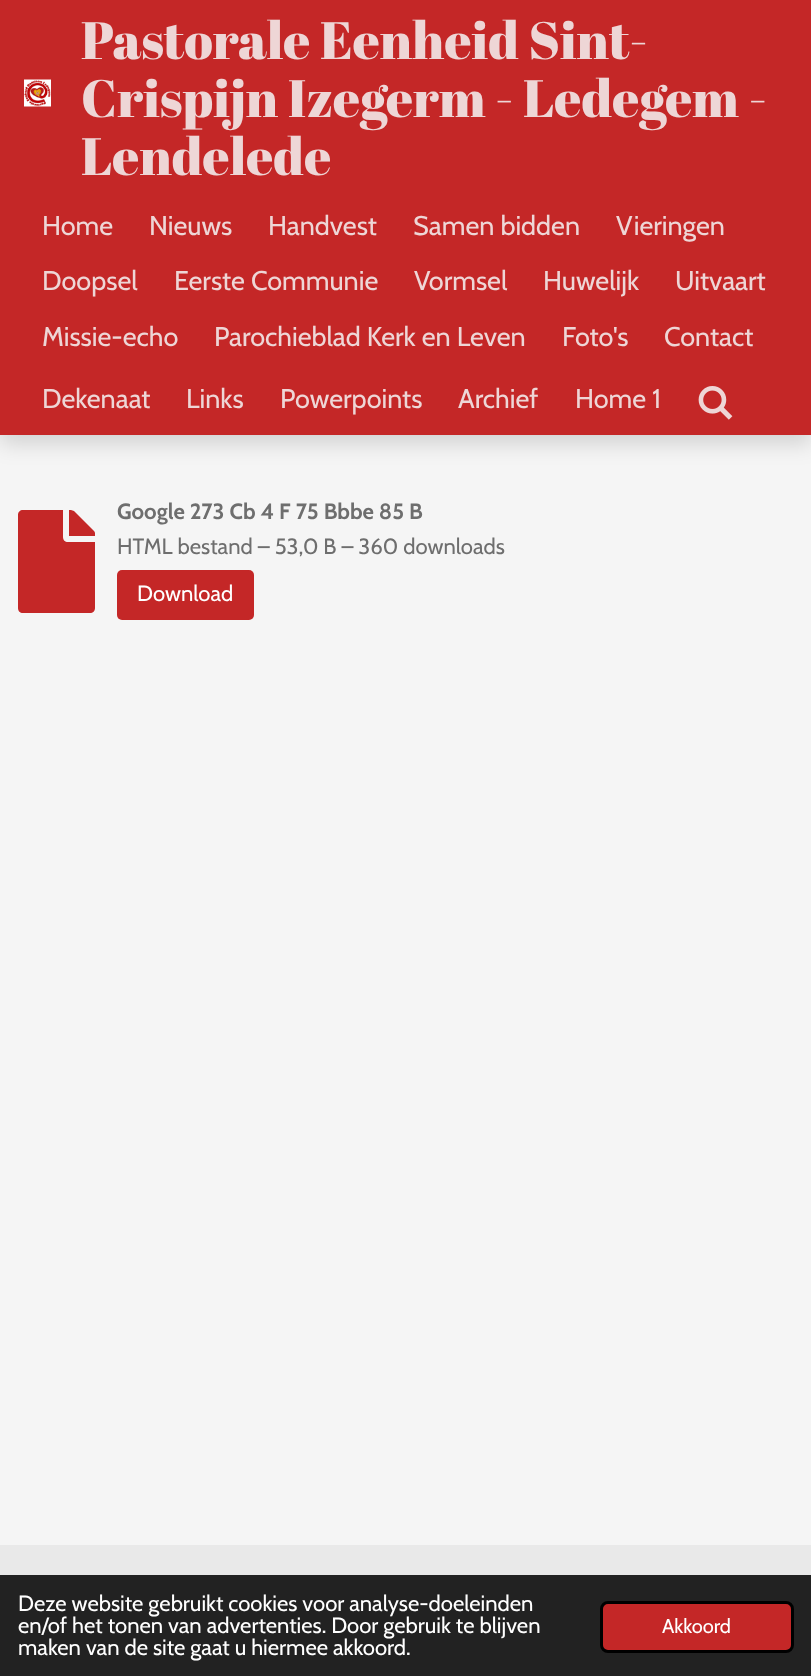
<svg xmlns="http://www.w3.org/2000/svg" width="811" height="1676">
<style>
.a{font:52.5px Abril Fatface;fill:#eed6d6}
.b{font:27px Cabin;fill:#eed6d6}
.c{font:bold 22.05px Cabin;fill:#6e6e6e}
.d{font:22.05px Cabin;fill:#6e6e6e}
.e{font:22.05px Cabin;fill:#fff}
.f{font:20px Cabin;fill:#fff}
</style>
<rect width="100%" height="100%" fill="#f5f5f5"/>
<path fill="#00000026" filter="blur(11px)" d="M0 8h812v435H0z"/>
<path fill="#c42727" d="M0 0h811v435H0z"/>
<image href="1.png" x="24" y="79" width="27" height="28"/>
<image href="2.png" x="698" y="386" width="35" height="34"/>
<path fill="#c42727" d="M63 537v-27h-40c-3 0-5 2-5 5v93c0 3 2 5 5 5h67c3 0 5-2 5-5v-66h-27c-3 0-5-2-5-5zm32-3v2h-26v-26h2c1 0 2 1 3 1l20 20c1 1 1 2 1 3z"/>
<rect fill="#c42727" x="117" y="570" width="137" height="50" rx="5"/>
<path fill="#e9e9e9" d="M0 1545h811v30H0z"/>
<path fill="#222" d="M0 1575h811v101H0z"/>
<rect fill="#c42727" stroke="#000" stroke-width="3" x="601.5" y="1602.5" width="191" height="49" rx="6.5"/>
<text class="a" x="81" y="59">Pastorale Eenheid Sint-</text>
<text class="a" x="81" y="117">Crispijn Izegerm - Ledegem -</text>
<text class="a" x="81" y="175">Lendelede</text>
<text class="b" x="42" y="235">Home</text>
<text class="b" x="149" y="235">Nieuws</text>
<text class="b" x="268" y="235">Handvest</text>
<text class="b" x="413" y="235">Samen bidden</text>
<text class="b" x="616" y="235">Vieringen</text>
<text class="b" x="42" y="290">Doopsel</text>
<text class="b" x="174" y="290">Eerste Communie</text>
<text class="b" x="414" y="290">Vormsel</text>
<text class="b" x="543" y="290">Huwelijk</text>
<text class="b" x="675" y="290">Uitvaart</text>
<text class="b" x="42" y="346">Missie-echo</text>
<text class="b" x="214" y="346">Parochieblad Kerk en Leven</text>
<text class="b" x="562" y="346">Foto's</text>
<text class="b" x="664" y="346">Contact</text>
<text class="b" x="42" y="408">Dekenaat</text>
<text class="b" x="186" y="408">Links</text>
<text class="b" x="280" y="408">Powerpoints</text>
<text class="b" x="458" y="408">Archief</text>
<text class="b" x="575" y="408">Home 1</text>
<text class="c" x="117" y="519">Google 273 Cb 4 F 75 Bbbe 85 B</text>
<text class="d" x="117" y="554">HTML bestand – 53,0 B – 360 downloads</text>
<text class="e" x="137" y="601">Download</text>
<text class="e" x="18" y="1611">Deze website gebruikt cookies voor analyse-doeleinden</text>
<text class="e" x="18" y="1633">en/of het tonen van advertenties. Door gebruik te blijven</text>
<text class="e" x="18" y="1655">maken van de site gaat u hiermee akkoord.</text>
<text class="f" x="662" y="1633">Akkoord</text>
</svg>
